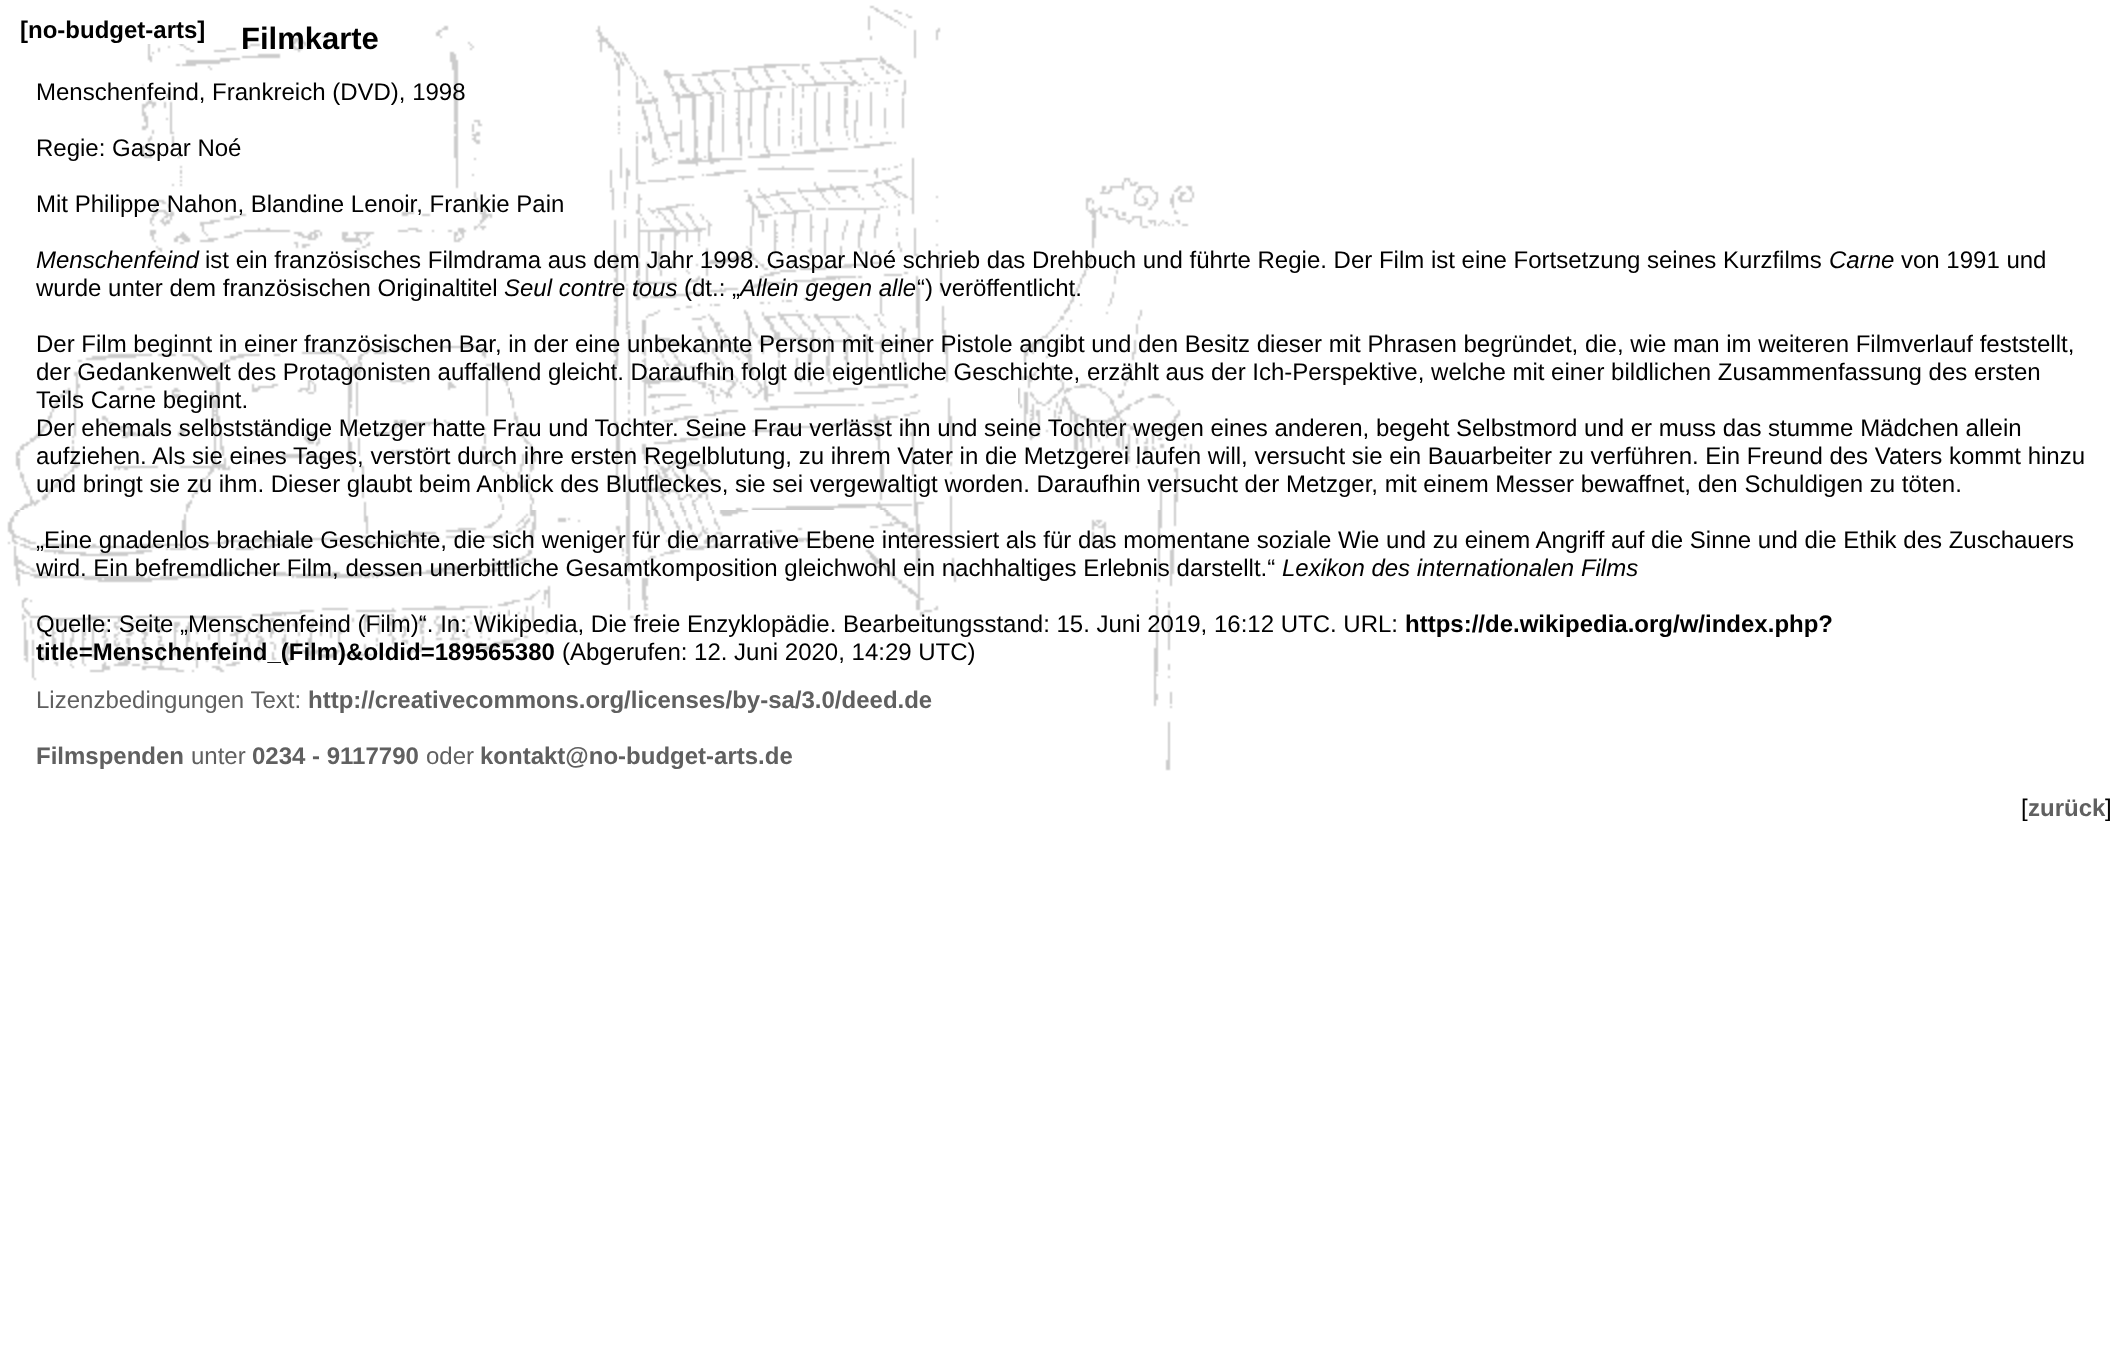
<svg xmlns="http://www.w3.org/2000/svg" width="2127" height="1371">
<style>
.a{font:bold 24px Liberation Sans;fill:#000}
.b{font:bold 31px Liberation Sans;fill:#000}
.c{font:24px Liberation Sans;fill:#000}
.d{font:italic 24px Liberation Sans;fill:#000}
.e{font:24px Liberation Sans;fill:#606060}
.f{font:bold 24px Liberation Sans;fill:#606060}
</style>
<rect width="100%" height="100%" fill="#fff"/>
<image href="1.png" x="7" y="5" width="1188" height="766"/>
<path fill="#fff" d="M137 23h48v21H137z"/>
<text class="a" x="20" y="38">[no-budget-arts]</text>
<text class="b" x="241" y="49">Filmkarte</text>
<text class="c" x="36" y="100">Menschenfeind, Frankreich (DVD), 1998</text>
<text class="c" x="36" y="156">Regie: Gaspar Noé</text>
<text class="c" x="36" y="212">Mit Philippe Nahon, Blandine Lenoir, Frankie Pain</text>
<text class="d" x="36" y="268">Menschenfeind</text>
<text class="c" x="205" y="268">ist ein französisches Filmdrama aus dem Jahr 1998. Gaspar Noé schrieb das Drehbuch und führte Regie. Der Film ist eine Fortsetzung seines Kurzfilms</text>
<text class="d" x="1829" y="268">Carne</text>
<text class="c" x="1901" y="268">von 1991 und</text>
<text class="c" x="36" y="296">wurde unter dem französischen Originaltitel</text>
<text class="d" x="504" y="296">Seul contre tous</text>
<text class="c" x="684" y="296">(dt.: „</text>
<text class="d" x="740" y="296">Allein gegen alle</text>
<text class="c" x="917" y="296">“) veröffentlicht.</text>
<text class="c" x="36" y="352">Der Film beginnt in einer französischen Bar, in der eine unbekannte Person mit einer Pistole angibt und den Besitz dieser mit Phrasen begründet, die, wie man im weiteren Filmverlauf feststellt,</text>
<text class="c" x="36" y="380">der Gedankenwelt des Protagonisten auffallend gleicht. Daraufhin folgt die eigentliche Geschichte, erzählt aus der Ich-Perspektive, welche mit einer bildlichen Zusammenfassung des ersten</text>
<text class="c" x="36" y="408">Teils Carne beginnt.</text>
<text class="c" x="36" y="436">Der ehemals selbstständige Metzger hatte Frau und Tochter. Seine Frau verlässt ihn und seine Tochter wegen eines anderen, begeht Selbstmord und er muss das stumme Mädchen allein</text>
<text class="c" x="36" y="464">aufziehen. Als sie eines Tages, verstört durch ihre ersten Regelblutung, zu ihrem Vater in die Metzgerei laufen will, versucht sie ein Bauarbeiter zu verführen. Ein Freund des Vaters kommt hinzu</text>
<text class="c" x="36" y="492">und bringt sie zu ihm. Dieser glaubt beim Anblick des Blutfleckes, sie sei vergewaltigt worden. Daraufhin versucht der Metzger, mit einem Messer bewaffnet, den Schuldigen zu töten.</text>
<text class="c" x="36" y="548">„Eine gnadenlos brachiale Geschichte, die sich weniger für die narrative Ebene interessiert als für das momentane soziale Wie und zu einem Angriff auf die Sinne und die Ethik des Zuschauers</text>
<text class="c" x="36" y="576">wird. Ein befremdlicher Film, dessen unerbittliche Gesamtkomposition gleichwohl ein nachhaltiges Erlebnis darstellt.“</text>
<text class="d" x="1282" y="576">Lexikon des internationalen Films</text>
<text class="c" x="36" y="632">Quelle: Seite „Menschenfeind (Film)“. In: Wikipedia, Die freie Enzyklopädie. Bearbeitungsstand: 15. Juni 2019, 16:12 UTC. URL:</text>
<text class="a" x="1405" y="632">https://de.wikipedia.org/w/index.php?</text>
<text class="a" x="36" y="660">title=Menschenfeind_(Film)&amp;oldid=189565380</text>
<text class="c" x="562" y="660">(Abgerufen: 12. Juni 2020, 14:29 UTC)</text>
<text class="e" x="36" y="708">Lizenzbedingungen Text:</text>
<text class="f" x="308" y="708">http://creativecommons.org/licenses/by-sa/3.0/deed.de</text>
<text class="f" x="36" y="764">Filmspenden</text>
<text class="e" x="191" y="764">unter</text>
<text class="f" x="252" y="764">0234 - 9117790</text>
<text class="e" x="426" y="764">oder</text>
<text class="f" x="480" y="764">kontakt@no-budget-arts.de</text>
<text class="c" x="2021" y="816">[</text>
<text class="f" x="2028" y="816">zurück</text>
<text class="c" x="2105" y="816">]</text>
</svg>
